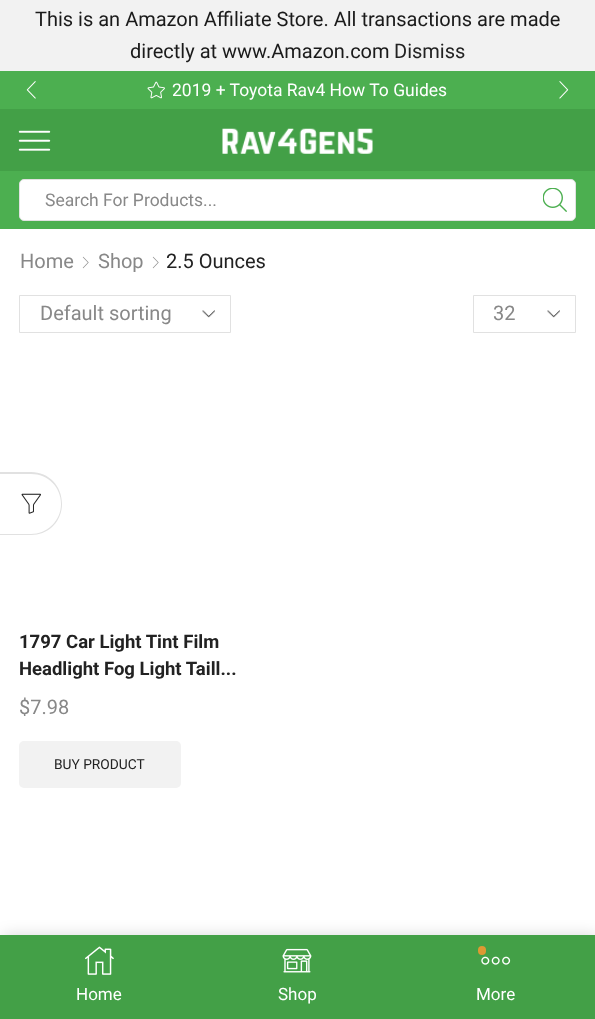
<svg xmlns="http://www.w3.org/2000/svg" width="595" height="1019">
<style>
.a{font:20px Roboto;fill:#1a1a1a}
.b{font:20px Roboto;fill:#222}
.c{font:17.5px Roboto;fill:#fff}
.d{font:17.5px Roboto;fill:#888}
.e{font:20px Roboto;fill:#888}
.f{font:bold 18.5px Roboto;fill:#222}
.g{font:13.75px Roboto;fill:#222}
.h{font:17px Roboto;fill:#fff}
</style>
<rect width="100%" height="100%" fill="#fff"/>
<path fill="#f2f2f2" d="M0 0h595v71H0z"/>
<path fill="#4caf50" d="M0 71h595v38H0z"/>
<image href="1.png" x="26" y="81" width="10" height="18"/>
<image href="2.png" x="147" y="81" width="18" height="18"/>
<image href="3.png" x="559" y="81" width="10" height="18"/>
<path fill="#43a047" d="M0 109h595v62H0z"/>
<image href="4.png" x="18" y="130" width="33" height="21"/>
<image href="5.png" x="222" y="128" width="151" height="26"/>
<path fill="#4caf50" d="M0 171h595v58H0z"/>
<rect fill="#fff" stroke="#e1e1e1" x="19.5" y="179.5" width="556" height="41" rx="4.5"/>
<image href="6.png" x="543" y="188" width="24" height="24"/>
<image href="7.png" x="82" y="256" width="7" height="13"/>
<image href="7.png" x="152" y="256" width="7" height="13"/>
<image href="8.png" x="202" y="310" width="13" height="8"/>
<path fill="none" stroke="#e1e1e1" d="M19.5 295.5h211v37H19.5z"/>
<image href="8.png" x="547" y="310" width="13" height="8"/>
<path fill="none" stroke="#e1e1e1" d="M473.5 295.5h102v37H473.5z"/>
<rect fill="#f2f2f2" x="19" y="741" width="162" height="47" rx="5"/>
<path fill="#00000026" filter="blur(7.5px)" d="M3 935h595v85H3z"/>
<path fill="#43a047" d="M0 935h595v84H0z"/>
<image href="9.png" x="85" y="946" width="29" height="29"/>
<image href="10.png" x="282" y="948" width="30" height="25"/>
<rect fill="#d93" x="478" y="946" width="8" height="9" rx="4"/>
<image href="11.png" x="481" y="956" width="30" height="9"/>
<path fill="#e1e1e1" fill-rule="evenodd" d="M0 472h31c18 0 31 14 31 32c0 17-13 31-31 31h-31zm0 2h31c17 0 30 13 30 30c0 16-13 30-30 30h-31z"/>
<image href="12.png" x="21" y="493" width="20" height="21"/>
<text class="a" x="35" y="26">This is an Amazon Affiliate Store. All transactions are made</text>
<text class="a" x="130" y="58">directly at www.Amazon.com</text>
<text class="b" x="394" y="58">Dismiss</text>
<text class="c" x="172" y="96">2019 + Toyota Rav4 How To Guides</text>
<text class="d" x="45" y="206">Search For Products...</text>
<text class="e" x="20" y="268">Home</text>
<text class="e" x="98" y="268">Shop</text>
<text class="b" x="166" y="268">2.5 Ounces</text>
<text class="e" x="40" y="320">Default sorting</text>
<text class="e" x="493" y="320">32</text>
<text class="f" x="19" y="648">1797 Car Light Tint Film</text>
<text class="f" x="19" y="675">Headlight Fog Light Taill...</text>
<text class="e" x="19" y="714">$7.98</text>
<text class="g" x="54" y="769">BUY PRODUCT</text>
<text class="h" x="76" y="1000">Home</text>
<text class="h" x="278" y="1000">Shop</text>
<text class="h" x="476" y="1000">More</text>
</svg>
